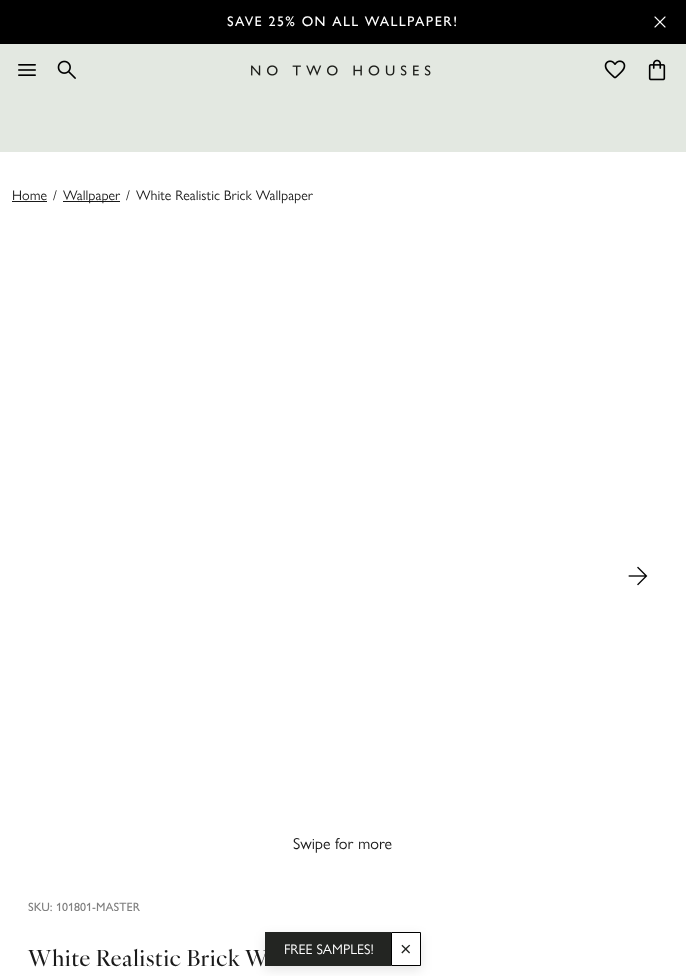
<svg xmlns="http://www.w3.org/2000/svg" width="686" height="976">
<style>
.a{font:500 14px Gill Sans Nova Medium;letter-spacing:1.4px;fill:#fff}
.b{font:14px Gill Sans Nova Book;fill:#1a1a1a}
.c{font:16px Gill Sans Nova Book;fill:#1a1a1a}
.d{font:500 12px Gill Sans Nova Medium;fill:#808080}
.e{font:500 22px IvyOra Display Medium;letter-spacing:0.8px;fill:#1a1a1a}
.f{font:14px Gill Sans Nova Book;fill:#fff}
.g{font:20px Gill Sans Nova Book;fill:#232522}
</style>
<rect width="100%" height="100%" fill="#fff"/>
<path fill="#000" d="M0 0h686v44H0z"/>
<image href="1.png" x="654" y="16" width="12" height="12"/>
<path fill="#e3e8e1" d="M0 44h686v108H0z"/>
<image href="2.png" x="18" y="64" width="18" height="12"/>
<image href="3.png" x="57" y="60" width="19" height="19"/>
<image href="4.png" x="251" y="65" width="180" height="11"/>
<image href="5.png" x="604" y="60" width="22" height="19"/>
<image href="6.png" x="648" y="59" width="18" height="22"/>
<path fill="#1a1a1a" d="M12 201h35v1H12z"/>
<path fill="#1a1a1a" d="M63 201h57v1H63z"/>
<image href="7.png" x="628" y="566" width="20" height="20"/>
<path fill="#0000001a" filter="blur(6px)" d="M265 936h156v34H265z"/>
<path fill="#fff" stroke="#000" d="M391.5 932.5h29v33H391.5z"/>
<text class="a" x="227" y="26">SAVE 25% ON ALL WALLPAPER!</text>
<text class="b" x="12" y="200">Home</text>
<text class="b" x="53" y="200">/</text>
<text class="b" x="63" y="200">Wallpaper</text>
<text class="b" x="126" y="200">/</text>
<text class="b" x="136" y="200">White Realistic Brick Wallpaper</text>
<text class="c" x="293" y="849">Swipe for more</text>
<text class="d" x="28" y="911">SKU: 101801-MASTER</text>
<text class="e" x="28" y="966">White Realistic Brick W</text>
<path fill="#232522" d="M265 932h126v34H265z"/>
<text class="f" x="284" y="954">FREE SAMPLES!</text>
<text class="g" x="400" y="956">×</text>
</svg>
